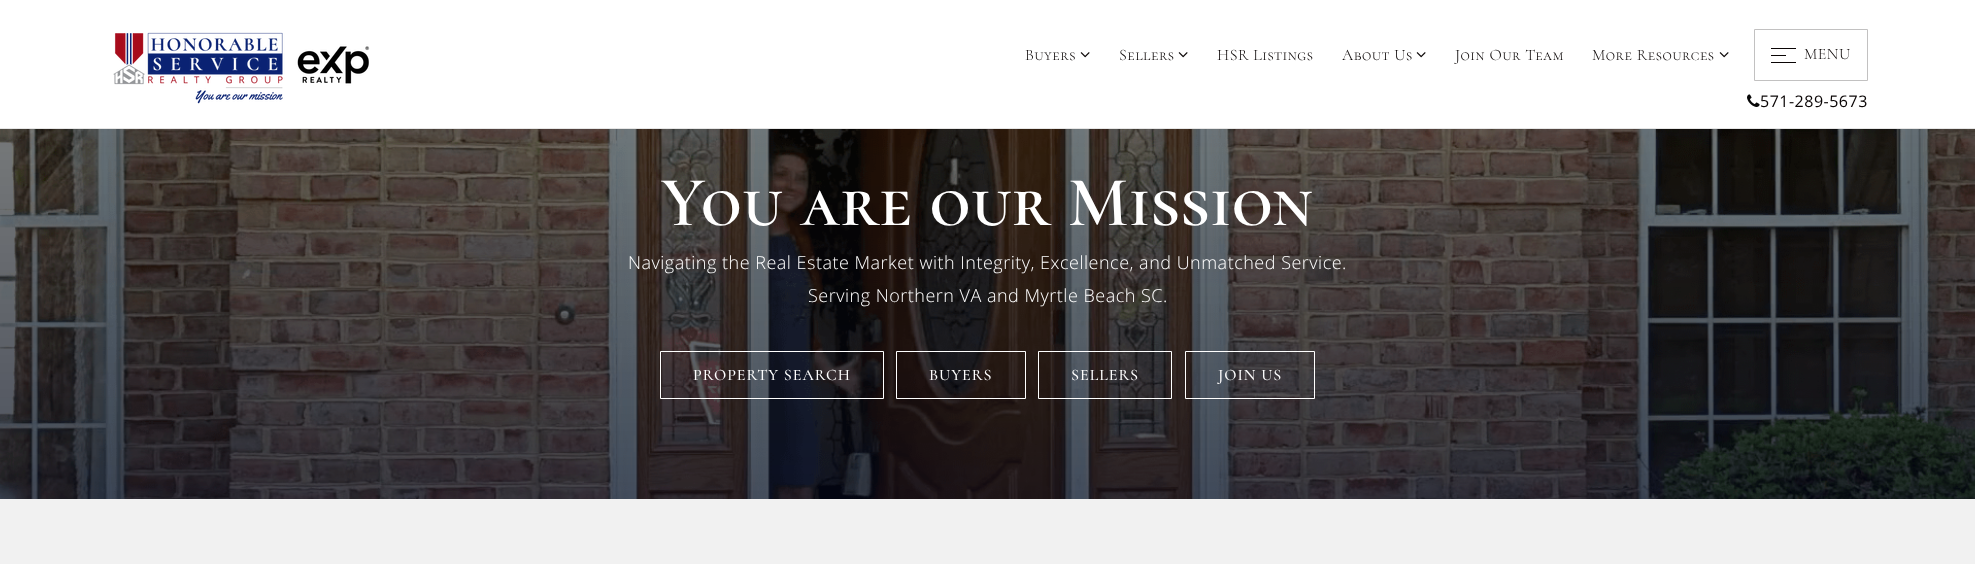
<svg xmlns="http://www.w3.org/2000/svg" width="1975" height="564">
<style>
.a{font:300 16px Cormorant SC;letter-spacing:0.5px;fill:#0a0505}
.b{font:16px Open Sans;letter-spacing:0.5px;fill:#0a0505}
.c{font:600 71px Cormorant SC;letter-spacing:0.5px;fill:#fff}
.d{font:300 18px Open Sans;letter-spacing:0.5px;fill:#fff}
.e{font:500 16px Cormorant SC;letter-spacing:1px;fill:#fff}
</style>
<rect width="100%" height="100%" fill="#fff"/>
<path fill="#e6e6e6" d="M0 128h1975v1H0z"/>
<image href="1.png" x="113" y="32" width="257" height="72"/>
<image href="2.png" x="1080" y="52" width="10" height="6"/>
<image href="2.png" x="1178" y="52" width="10" height="6"/>
<image href="2.png" x="1416" y="52" width="10" height="6"/>
<image href="2.png" x="1719" y="52" width="10" height="6"/>
<path fill="none" stroke="#c2c1c1" d="M1754.5 29.5h113v51H1754.5z"/>
<path fill="#0a0505" d="M1771 48h25v1H1771z"/>
<path fill="#0a0505" d="M1771 55h15v1H1771z"/>
<path fill="#0a0505" d="M1771 62h25v1H1771z"/>
<image href="3.png" x="1747" y="94" width="13" height="13"/>
<image href="4.png" x="0" y="129" width="1975" height="370"/>
<path fill="none" stroke="#fff" d="M660.5 351.5h223v47H660.5z"/>
<path fill="none" stroke="#fff" d="M896.5 351.5h129v47H896.5z"/>
<path fill="none" stroke="#fff" d="M1038.5 351.5h133v47H1038.5z"/>
<path fill="none" stroke="#fff" d="M1185.5 351.5h129v47H1185.5z"/>
<path fill="#f1f1f1" d="M0 499h1975v65H0z"/>
<text class="a" x="1025" y="60">Buyers</text>
<text class="a" x="1119" y="60">Sellers</text>
<text class="a" x="1217" y="60">HSR Listings</text>
<text class="a" x="1342" y="60">About Us</text>
<text class="a" x="1455" y="60">Join Our Team</text>
<text class="a" x="1592" y="60">More Resources</text>
<text class="a" x="1804" y="59">MENU</text>
<text class="b" x="1760" y="107">571-289-5673</text>
<text class="c" x="661" y="225">You are our Mission</text>
<text class="d" x="628" y="269">Navigating the Real Estate Market with Integrity, Excellence, and Unmatched Service.</text>
<text class="d" x="808" y="302">Serving Northern VA and Myrtle Beach SC.</text>
<text class="e" x="693" y="380">PROPERTY SEARCH</text>
<text class="e" x="929" y="380">BUYERS</text>
<text class="e" x="1071" y="380">SELLERS</text>
<text class="e" x="1218" y="380">JOIN US</text>
</svg>
